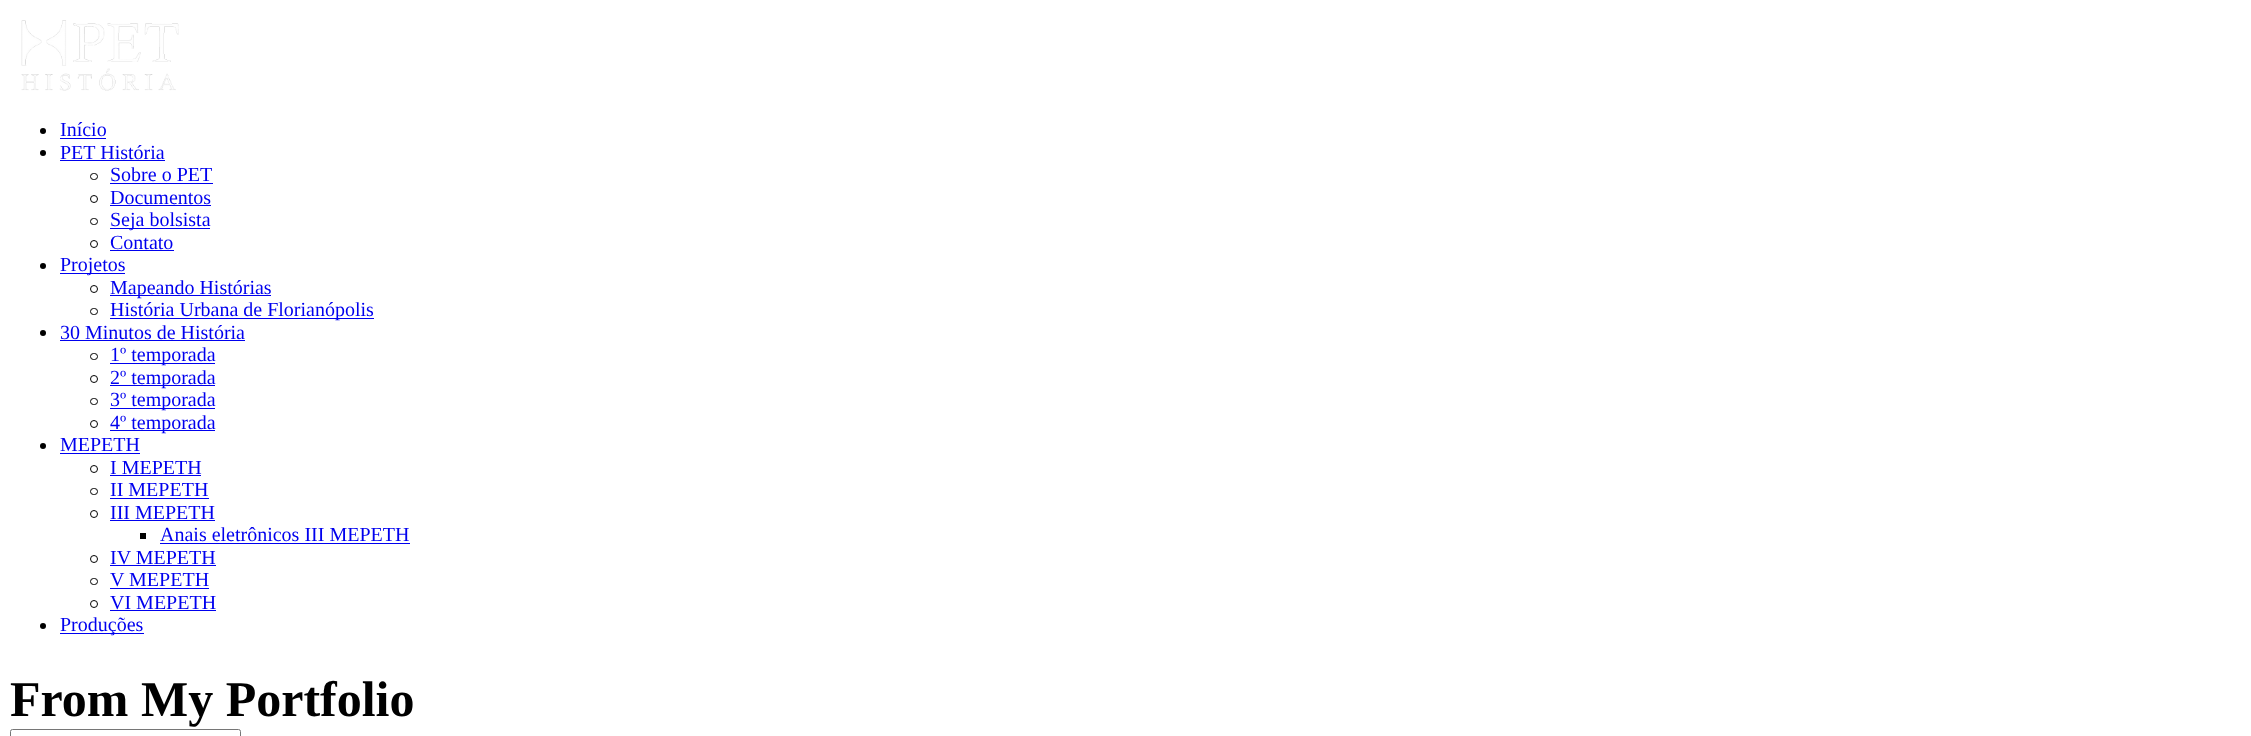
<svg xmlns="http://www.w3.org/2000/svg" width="2251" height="736">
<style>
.a{font:20px Liberation Serif;fill:#00e}
.b{font:bold 50px Liberation Serif;fill:#000}
</style>
<rect width="100%" height="100%" fill="#fff"/>
<image href="1.png" x="21" y="20" width="158" height="71"/>
<circle fill="#000" cx="43" cy="131" r="3"/>
<path fill="#00e" d="M60 138h46v1H60z"/>
<circle fill="#000" cx="43" cy="153" r="3"/>
<path fill="#00e" d="M60 160h105v1H60z"/>
<rect fill="none" stroke="#000" x="90.5" y="173.5" width="7" height="6" rx="3"/>
<path fill="#00e" d="M110 183h103v1H110z"/>
<circle fill="none" stroke="#000" cx="94" cy="199" r="3.5"/>
<path fill="#00e" d="M110 205h101v1H110z"/>
<rect fill="none" stroke="#000" x="90.5" y="218.5" width="7" height="6" rx="3"/>
<path fill="#00e" d="M110 228h100v1H110z"/>
<circle fill="none" stroke="#000" cx="94" cy="244" r="3.5"/>
<path fill="#00e" d="M110 250h64v1H110z"/>
<circle fill="#000" cx="43" cy="266" r="3"/>
<path fill="#00e" d="M60 273h65v1H60z"/>
<circle fill="none" stroke="#000" cx="94" cy="289" r="3.5"/>
<path fill="#00e" d="M110 295h161v1H110z"/>
<rect fill="none" stroke="#000" x="90.5" y="308.5" width="7" height="6" rx="3"/>
<path fill="#00e" d="M110 318h264v1H110z"/>
<circle fill="#000" cx="43" cy="333" r="3"/>
<path fill="#00e" d="M60 340h185v1H60z"/>
<rect fill="none" stroke="#000" x="90.5" y="353.5" width="7" height="6" rx="3"/>
<path fill="#00e" d="M110 363h105v1H110z"/>
<circle fill="none" stroke="#000" cx="94" cy="379" r="3.5"/>
<path fill="#00e" d="M110 385h105v1H110z"/>
<rect fill="none" stroke="#000" x="90.5" y="398.5" width="7" height="6" rx="3"/>
<path fill="#00e" d="M110 408h105v1H110z"/>
<circle fill="none" stroke="#000" cx="94" cy="424" r="3.5"/>
<path fill="#00e" d="M110 430h105v1H110z"/>
<circle fill="#000" cx="43" cy="446" r="3"/>
<path fill="#00e" d="M60 453h80v1H60z"/>
<circle fill="none" stroke="#000" cx="94" cy="469" r="3.5"/>
<path fill="#00e" d="M110 475h91v1H110z"/>
<rect fill="none" stroke="#000" x="90.5" y="488.5" width="7" height="6" rx="3"/>
<path fill="#00e" d="M110 498h99v1H110z"/>
<circle fill="none" stroke="#000" cx="94" cy="514" r="3.5"/>
<path fill="#00e" d="M110 520h105v1H110z"/>
<path fill="#000" d="M140 533h6v6H140z"/>
<path fill="#00e" d="M160 543h250v1H160z"/>
<circle fill="none" stroke="#000" cx="94" cy="559" r="3.5"/>
<path fill="#00e" d="M110 565h106v1H110z"/>
<rect fill="none" stroke="#000" x="90.5" y="578.5" width="7" height="6" rx="3"/>
<path fill="#00e" d="M110 588h99v1H110z"/>
<circle fill="none" stroke="#000" cx="94" cy="604" r="3.5"/>
<path fill="#00e" d="M110 610h106v1H110z"/>
<circle fill="#000" cx="43" cy="626" r="3"/>
<path fill="#00e" d="M60 633h84v1H60z"/>
<rect fill="none" stroke="#767676" x="10.5" y="729.5" width="230" height="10" rx="2"/>
<text class="a" x="60" y="136">Início</text>
<text class="a" x="60" y="159">PET História</text>
<text class="a" x="110" y="181">Sobre o PET</text>
<text class="a" x="110" y="204">Documentos</text>
<text class="a" x="110" y="226">Seja bolsista</text>
<text class="a" x="110" y="249">Contato</text>
<text class="a" x="60" y="271">Projetos</text>
<text class="a" x="110" y="294">Mapeando Histórias</text>
<text class="a" x="110" y="316">História Urbana de Florianópolis</text>
<text class="a" x="60" y="339">30 Minutos de História</text>
<text class="a" x="110" y="361">1º temporada</text>
<text class="a" x="110" y="384">2º temporada</text>
<text class="a" x="110" y="406">3º temporada</text>
<text class="a" x="110" y="429">4º temporada</text>
<text class="a" x="60" y="451">MEPETH</text>
<text class="a" x="110" y="474">I MEPETH</text>
<text class="a" x="110" y="496">II MEPETH</text>
<text class="a" x="110" y="519">III MEPETH</text>
<text class="a" x="160" y="541">Anais eletrônicos III MEPETH</text>
<text class="a" x="110" y="564">IV MEPETH</text>
<text class="a" x="110" y="586">V MEPETH</text>
<text class="a" x="110" y="609">VI MEPETH</text>
<text class="a" x="60" y="631">Produções</text>
<text class="b" x="10" y="716">From My Portfolio</text>
</svg>
